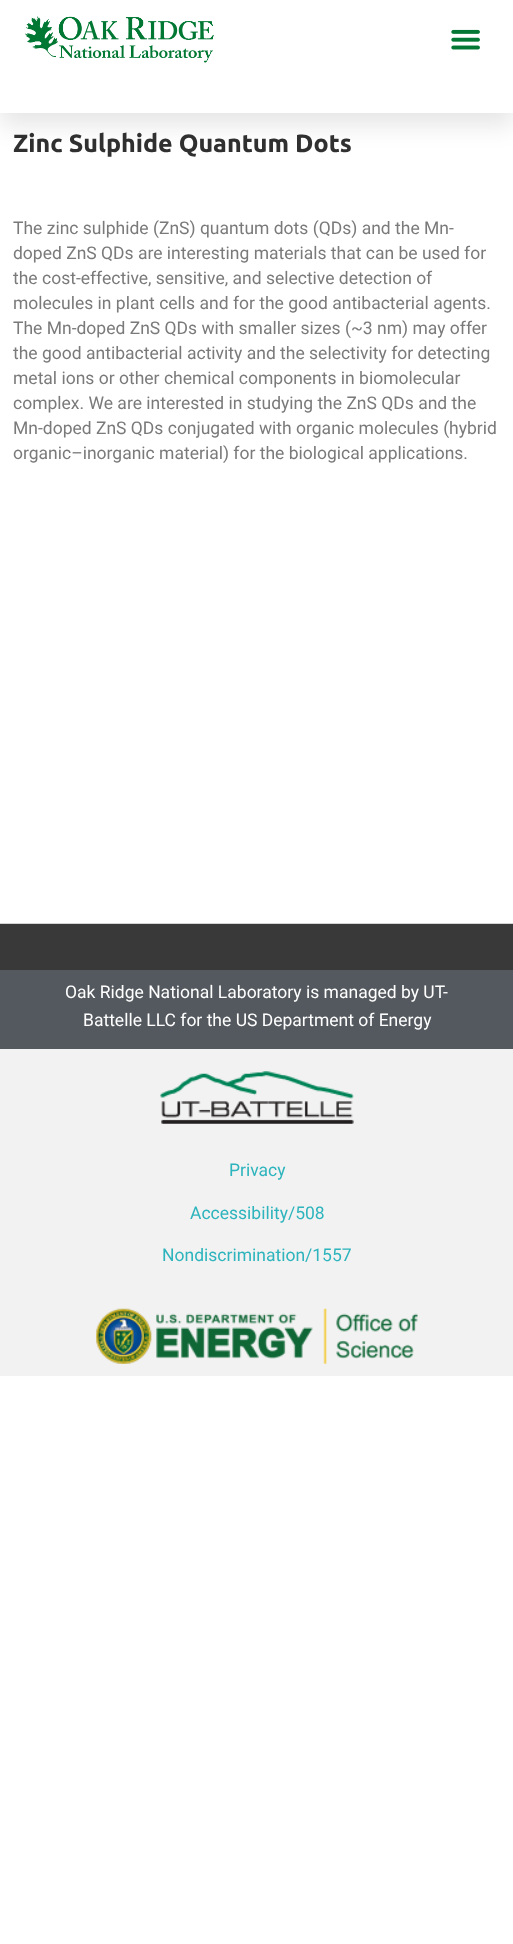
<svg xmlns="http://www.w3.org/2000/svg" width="513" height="1944">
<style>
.a{font:bold 25px Ubuntu;fill:#303030}
.b{font:17.5px Roboto;fill:#7a7a7a}
.c{font:17.5px Roboto;fill:#fff}
.d{font:17.5px Roboto;fill:#2db4bd}
</style>
<rect width="100%" height="100%" fill="#fff"/>
<path fill="#0000001a" filter="blur(12.5px)" d="M0 13h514v112H0z"/>
<path fill="#fff" d="M0 0h513v113H0z"/>
<image href="1.png" x="25" y="16" width="189" height="47"/>
<image href="2.png" x="451" y="29" width="29" height="21"/>
<path fill="#393939" d="M0 924h513v46H0z"/>
<path fill="#d3d3d3" d="M0 923h513v1H0z"/>
<path fill="#54595f" d="M0 970h513v79H0z"/>
<path fill="#f2f2f2" d="M0 1049h513v327H0z"/>
<image href="3.png" x="160" y="1071" width="194" height="53"/>
<image href="4.png" x="96" y="1308" width="322" height="56"/>
<text class="a" x="13" y="152">Zinc Sulphide Quantum Dots</text>
<text class="b" x="13" y="234">The zinc sulphide (ZnS) quantum dots (QDs) and the Mn-</text>
<text class="b" x="13" y="259">doped ZnS QDs are interesting materials that can be used for</text>
<text class="b" x="13" y="284">the cost-effective, sensitive, and selective detection of</text>
<text class="b" x="13" y="309">molecules in plant cells and for the good antibacterial agents.</text>
<text class="b" x="13" y="334">The Mn-doped ZnS QDs with smaller sizes (~3 nm) may offer</text>
<text class="b" x="13" y="359">the good antibacterial activity and the selectivity for detecting</text>
<text class="b" x="13" y="384">metal ions or other chemical components in biomolecular</text>
<text class="b" x="13" y="409">complex. We are interested in studying the ZnS QDs and the</text>
<text class="b" x="13" y="434">Mn-doped ZnS QDs conjugated with organic molecules (hybrid</text>
<text class="b" x="13" y="459">organic–inorganic material) for the biological applications.</text>
<text class="c" x="65" y="998">Oak Ridge National Laboratory is managed by UT-</text>
<text class="c" x="83" y="1026">Battelle LLC for the US Department of Energy</text>
<text class="d" x="229" y="1176">Privacy</text>
<text class="d" x="190" y="1219">Accessibility/508</text>
<text class="d" x="162" y="1261">Nondiscrimination/1557</text>
</svg>
